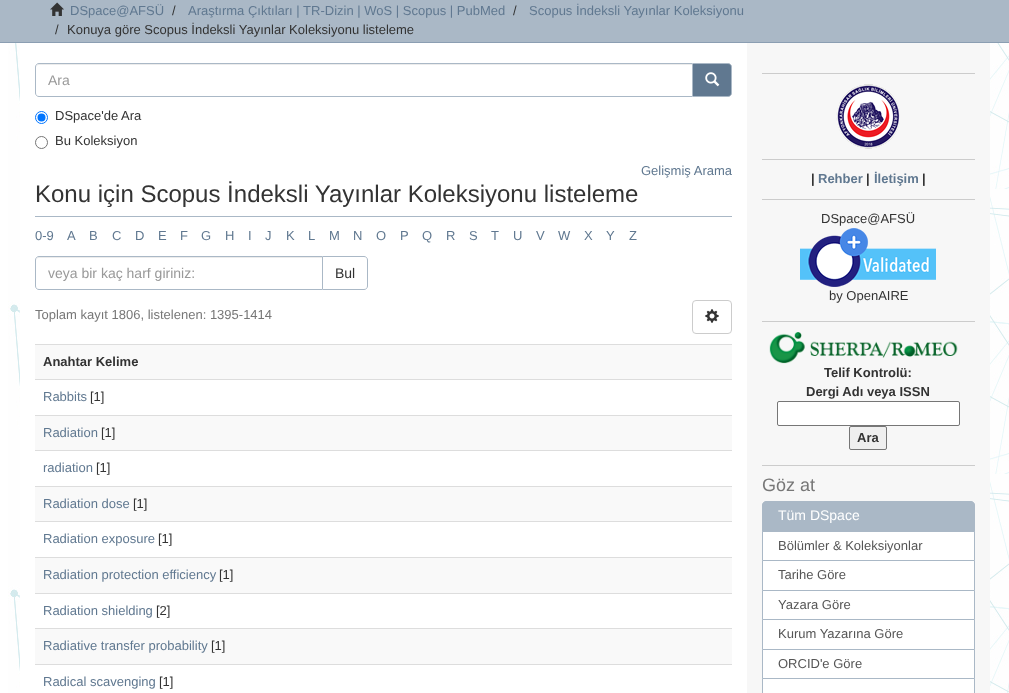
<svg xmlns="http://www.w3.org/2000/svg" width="1009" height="693">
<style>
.a{font:13px Liberation Sans;fill:#607890}
.b{font:13px Liberation Sans;fill:#333}
.c{font:14px Liberation Sans;fill:#999}
.d{font:24px Liberation Sans;fill:#333}
.e{font:14px Liberation Sans;fill:#333}
.f{font:13px Liberation Sans;fill:#777}
.g{font:bold 13px Liberation Sans;fill:#333}
.h{font:bold 13px Liberation Sans;fill:#607890}
.i{font:18px Liberation Sans;fill:#777}
.j{font:14px Liberation Sans;fill:#fff}
.k{font:13px Liberation Sans;fill:#555}
</style>
<rect width="100%" height="100%" fill="#fff"/>
<image href="1.png" x="8" y="43" width="1001" height="650"/>
<path fill="#aab8c6" d="M0 0h1009v42H0z"/>
<path fill="#8b9eb2" d="M0 42h1009v1H0z"/>
<image href="2.png" x="50" y="2" width="14" height="14"/>
<path fill="#f7f7f7" d="M747 43h243v650H747z"/>
<path fill="#fff" d="M20 43h727v650H20z"/>
<path fill="#607890" stroke="#aab8c6" d="M692.5 63.5h35.5c2 0 3.5 1.5 3.5 3.5v26c0 2-1.5 3.5-3.5 3.5h-35.5z"/>
<path fill="#fff" d="M39 63h654v34h-654c-2 0-4-2-4-4v-26c0-2 2-4 4-4z"/>
<path fill="#ececec" d="M39 65h653v-1h-653c-2 0-3 2-3 4c0-2 1-3 3-3z"/>
<path fill="none" stroke="#aab8c6" d="M39 63.5h653.5v33h-653.5c-2 0-3.5-1.5-3.5-3.5v-26c0-2 1.5-3.5 3.5-3.5z"/>
<image href="3.png" x="705" y="72" width="15" height="15"/>
<circle fill="none" stroke="#0075ff" cx="41.5" cy="117.5" r="6"/>
<circle fill="#0075ff" cx="41.5" cy="117.5" r="4"/>
<circle fill="none" stroke="#767676" cx="41.5" cy="142.5" r="6"/>
<path fill="#aab8c6" d="M35 216h697v1H35z"/>
<path fill="none" stroke="#aab8c6" d="M322.5 256.5h41.5c2 0 3.5 1.5 3.5 3.5v26c0 2-1.5 3.5-3.5 3.5h-41.5z"/>
<path fill="#fff" d="M39 256h284v34h-284c-2 0-4-2-4-4v-26c0-2 2-4 4-4z"/>
<path fill="#ececec" d="M39 258h283v-1h-283c-2 0-3 2-3 4c0-2 1-3 3-3z"/>
<path fill="none" stroke="#aab8c6" d="M39 256.5h283.5v33h-283.5c-2 0-3.5-1.5-3.5-3.5v-26c0-2 1.5-3.5 3.5-3.5z"/>
<rect fill="none" stroke="#ccc" x="692.5" y="300.5" width="39" height="33" rx="3.5"/>
<image href="4.png" x="705" y="309" width="14" height="14"/>
<path fill="#f9f9f9" d="M35 345h697v34H35z"/>
<path fill="#ddd" d="M35 344h697v1H35z"/>
<path fill="#ddd" d="M35 379h697v1H35z"/>
<path fill="#f9f9f9" d="M35 416h697v34H35z"/>
<path fill="#ddd" d="M35 415h697v1H35z"/>
<path fill="#ddd" d="M35 450h697v1H35z"/>
<path fill="#f9f9f9" d="M35 487h697v34H35z"/>
<path fill="#ddd" d="M35 486h697v1H35z"/>
<path fill="#ddd" d="M35 521h697v1H35z"/>
<path fill="#f9f9f9" d="M35 558h697v35H35z"/>
<path fill="#ddd" d="M35 557h697v1H35z"/>
<path fill="#ddd" d="M35 593h697v1H35z"/>
<path fill="#f9f9f9" d="M35 629h697v35H35z"/>
<path fill="#ddd" d="M35 628h697v1H35z"/>
<path fill="#ddd" d="M35 664h697v1H35z"/>
<path fill="#ccc" d="M762 73h213v1H762z"/>
<image href="5.png" x="836" y="84" width="64" height="65"/>
<path fill="#ccc" d="M762 159h213v1H762z"/>
<path fill="#ccc" d="M762 199h213v1H762z"/>
<image href="6.png" x="800" y="228" width="136" height="59"/>
<path fill="#ccc" d="M762 321h213v1H762z"/>
<image href="7.png" x="769" y="332" width="189" height="32"/>
<rect fill="#fff" stroke="#767676" x="777.5" y="401.5" width="182" height="24" rx="1.5"/>
<rect fill="#efefef" stroke="#767676" x="849.5" y="426.5" width="37" height="23" rx="1.5"/>
<path fill="#ccc" d="M762 465h213v1H762z"/>
<path fill="#fff" stroke="#aab8c6" d="M762.5 531.5h212v29H762.5z"/>
<path fill="#aab8c6" stroke="#aab8c6" d="M766 501.5h205c2 0 3.5 1.5 3.5 3.5v26.5h-212v-26.5c0-2 1.5-3.5 3.5-3.5z"/>
<path fill="#fff" stroke="#aab8c6" d="M762.5 560.5h212v30H762.5z"/>
<path fill="#fff" stroke="#aab8c6" d="M762.5 590.5h212v29H762.5z"/>
<path fill="#fff" stroke="#aab8c6" d="M762.5 619.5h212v30H762.5z"/>
<path fill="#fff" stroke="#aab8c6" d="M762.5 649.5h212v29H762.5z"/>
<path fill="#fff" stroke="#aab8c6" d="M762.5 678.5h212v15H762.5z"/>
<text class="a" x="70" y="15">DSpace@AFSÜ</text>
<text class="b" x="172" y="15">/</text>
<text class="a" x="188" y="15">Araştırma Çıktıları | TR-Dizin | WoS | Scopus | PubMed</text>
<text class="b" x="513" y="15">/</text>
<text class="a" x="529" y="15">Scopus İndeksli Yayınlar Koleksiyonu</text>
<text class="b" x="55" y="34">/</text>
<text class="b" x="67" y="34">Konuya göre Scopus İndeksli Yayınlar Koleksiyonu listeleme</text>
<text class="c" x="48" y="85">Ara</text>
<text class="b" x="55" y="120">DSpace'de Ara</text>
<text class="b" x="55" y="145">Bu Koleksiyon</text>
<text class="a" x="641" y="175">Gelişmiş Arama</text>
<text class="d" x="35" y="202">Konu için Scopus İndeksli Yayınlar Koleksiyonu listeleme</text>
<text class="a" x="35" y="240">0-9</text>
<text class="a" x="67" y="240">A</text>
<text class="a" x="89" y="240">B</text>
<text class="a" x="112" y="240">C</text>
<text class="a" x="135" y="240">D</text>
<text class="a" x="158" y="240">E</text>
<text class="a" x="180" y="240">F</text>
<text class="a" x="201" y="240">G</text>
<text class="a" x="225" y="240">H</text>
<text class="a" x="248" y="240">I</text>
<text class="a" x="265" y="240">J</text>
<text class="a" x="286" y="240">K</text>
<text class="a" x="308" y="240">L</text>
<text class="a" x="329" y="240">M</text>
<text class="a" x="353" y="240">N</text>
<text class="a" x="376" y="240">O</text>
<text class="a" x="400" y="240">P</text>
<text class="a" x="422" y="240">Q</text>
<text class="a" x="446" y="240">R</text>
<text class="a" x="469" y="240">S</text>
<text class="a" x="491" y="240">T</text>
<text class="a" x="513" y="240">U</text>
<text class="a" x="536" y="240">V</text>
<text class="a" x="558" y="240">W</text>
<text class="a" x="584" y="240">X</text>
<text class="a" x="606" y="240">Y</text>
<text class="a" x="629" y="240">Z</text>
<text class="c" x="48" y="278">veya bir kaç harf giriniz:</text>
<text class="e" x="335" y="278">Bul</text>
<text class="f" x="35" y="319">Toplam kayıt 1806, listelenen: 1395-1414</text>
<text class="g" x="43" y="366">Anahtar Kelime</text>
<text class="a" x="43" y="401">Rabbits</text>
<text class="b" x="90" y="401">[1]</text>
<text class="a" x="43" y="437">Radiation</text>
<text class="b" x="101" y="437">[1]</text>
<text class="a" x="43" y="472">radiation</text>
<text class="b" x="96" y="472">[1]</text>
<text class="a" x="43" y="508">Radiation dose</text>
<text class="b" x="133" y="508">[1]</text>
<text class="a" x="43" y="543">Radiation exposure</text>
<text class="b" x="158" y="543">[1]</text>
<text class="a" x="43" y="579">Radiation protection efficiency</text>
<text class="b" x="219" y="579">[1]</text>
<text class="a" x="43" y="615">Radiation shielding</text>
<text class="b" x="156" y="615">[2]</text>
<text class="a" x="43" y="650">Radiative transfer probability</text>
<text class="b" x="211" y="650">[1]</text>
<text class="a" x="43" y="686">Radical scavenging</text>
<text class="b" x="159" y="686">[1]</text>
<text class="g" x="811" y="183">|</text>
<text class="h" x="818" y="183">Rehber</text>
<text class="g" x="866" y="183">|</text>
<text class="h" x="874" y="183">İletişim</text>
<text class="g" x="922" y="183">|</text>
<text class="b" x="821" y="223">DSpace@AFSÜ</text>
<text class="b" x="829" y="300">by OpenAIRE</text>
<text class="g" x="824" y="377">Telif Kontrolü:</text>
<text class="g" x="806" y="396">Dergi Adı veya ISSN</text>
<text class="g" x="857" y="442">Ara</text>
<text class="i" x="762" y="491">Göz at</text>
<text class="j" x="778" y="520">Tüm DSpace</text>
<text class="k" x="778" y="550">Bölümler &amp; Koleksiyonlar</text>
<text class="k" x="778" y="579">Tarihe Göre</text>
<text class="k" x="778" y="609">Yazara Göre</text>
<text class="k" x="778" y="638">Kurum Yazarına Göre</text>
<text class="k" x="778" y="668">ORCID'e Göre</text>
</svg>
